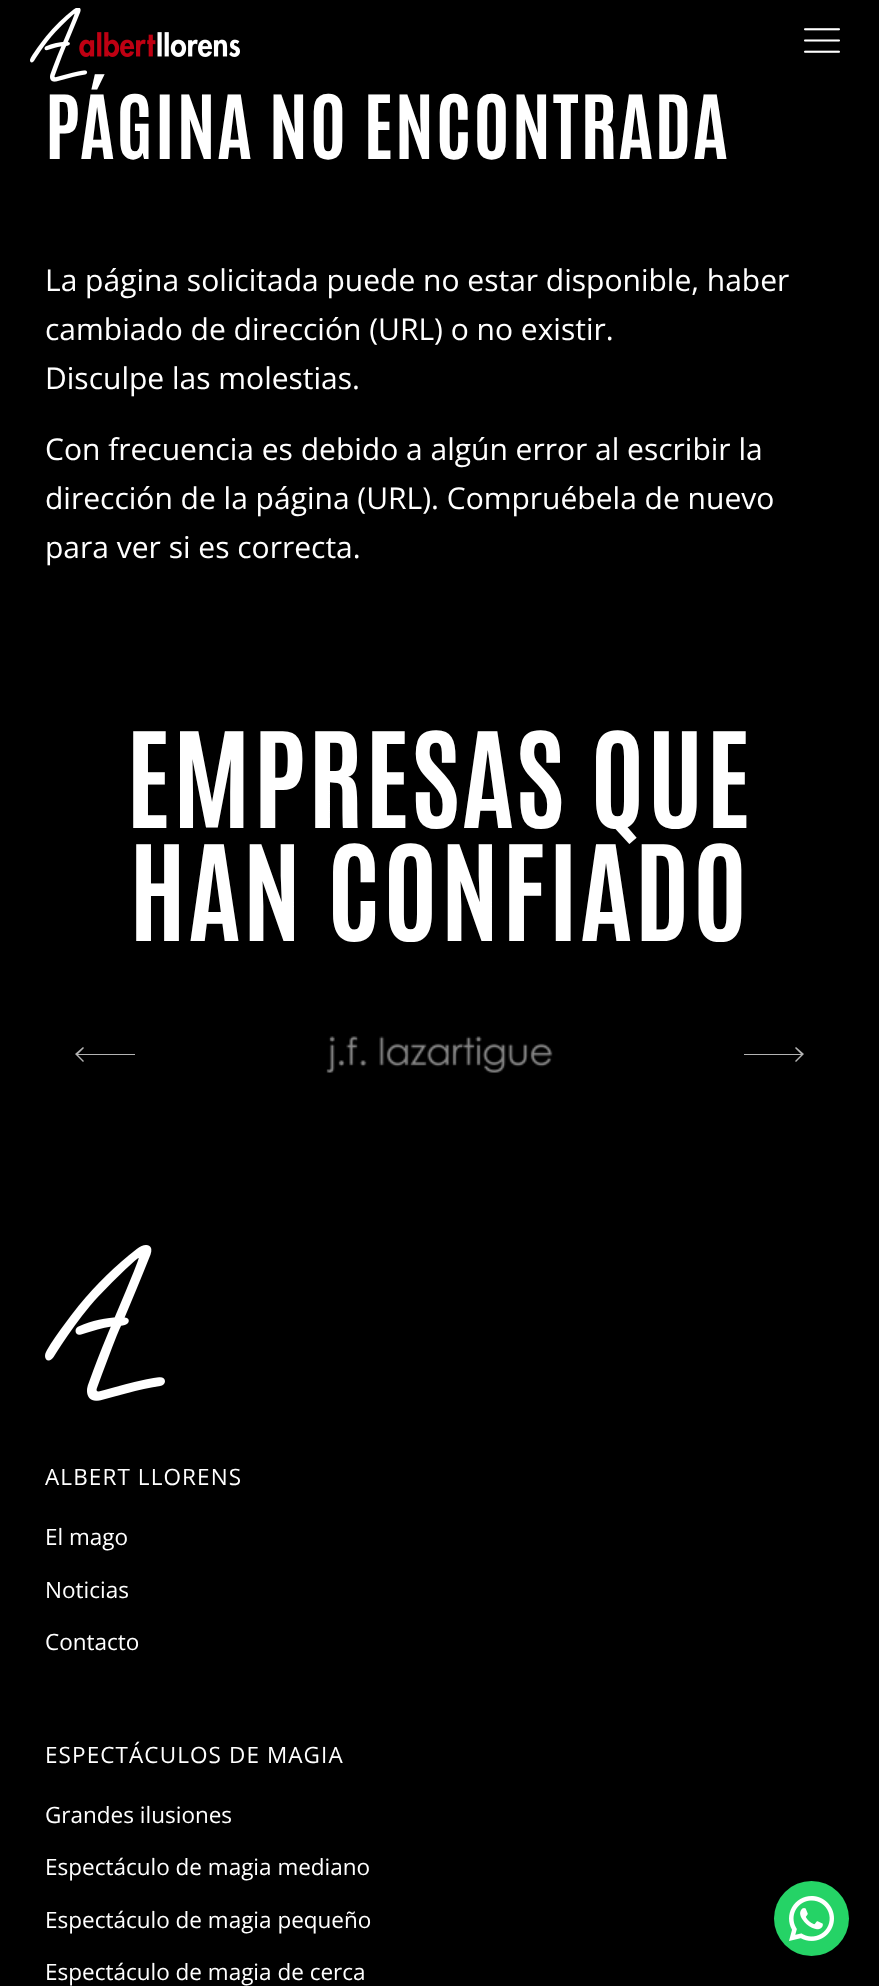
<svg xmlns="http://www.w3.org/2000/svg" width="879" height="1986">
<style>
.a{font:bold 75px Antonio;letter-spacing:1.9px;fill:#fff}
.b{font:30px Open Sans;fill:#fff}
.c{font:bold 112.5px Antonio;letter-spacing:2.75px;fill:#fff}
.d{font:22.5px Open Sans;letter-spacing:1.1px;fill:#fff}
.e{font:22.5px Open Sans;fill:#fff}
</style>
<rect width="100%" height="100%" fill="#000"/>
<image href="2.png" x="804" y="28" width="36" height="25"/>
<image href="3.png" x="326" y="1036" width="227" height="37"/>
<path fill="#b3b3b3" d="M83 1062l1-1l-6-6h57v-1h-57l6-6l-1-1l-8 7z"/>
<path fill="#b3b3b3" d="M796 1062l-1-1l6-6h-57v-1h57l-6-6l1-1l8 7z"/>
<image href="4.png" x="45" y="1245" width="120" height="156"/>
<circle fill="#25d366" cx="811.5" cy="1918.5" r="37.5"/>
<image href="5.png" x="789" y="1896" width="45" height="45"/>
<text class="a" x="45" y="159">PÁGINA NO ENCONTRADA</text>
<image href="1.png" x="30" y="8" width="210" height="74"/>
<text class="b" x="45" y="291">La página solicitada puede no estar disponible, haber</text>
<text class="b" x="45" y="340">cambiado de dirección (URL) o no existir.</text>
<text class="b" x="45" y="389">Disculpe las molestias.</text>
<text class="b" x="45" y="460">Con frecuencia es debido a algún error al escribir la</text>
<text class="b" x="45" y="509">dirección de la página (URL). Compruébela de nuevo</text>
<text class="b" x="45" y="558">para ver si es correcta.</text>
<text class="c" x="126" y="828">EMPRESAS QUE</text>
<text class="c" x="129" y="941">HAN CONFIADO</text>
<text class="d" x="45" y="1485">ALBERT LLORENS</text>
<text class="e" x="45" y="1545">El mago</text>
<text class="e" x="45" y="1598">Noticias</text>
<text class="e" x="45" y="1650">Contacto</text>
<text class="d" x="45" y="1763">ESPECTÁCULOS DE MAGIA</text>
<text class="e" x="45" y="1823">Grandes ilusiones</text>
<text class="e" x="45" y="1875">Espectáculo de magia mediano</text>
<text class="e" x="45" y="1928">Espectáculo de magia pequeño</text>
<text class="e" x="45" y="1980">Espectáculo de magia de cerca</text>
</svg>
